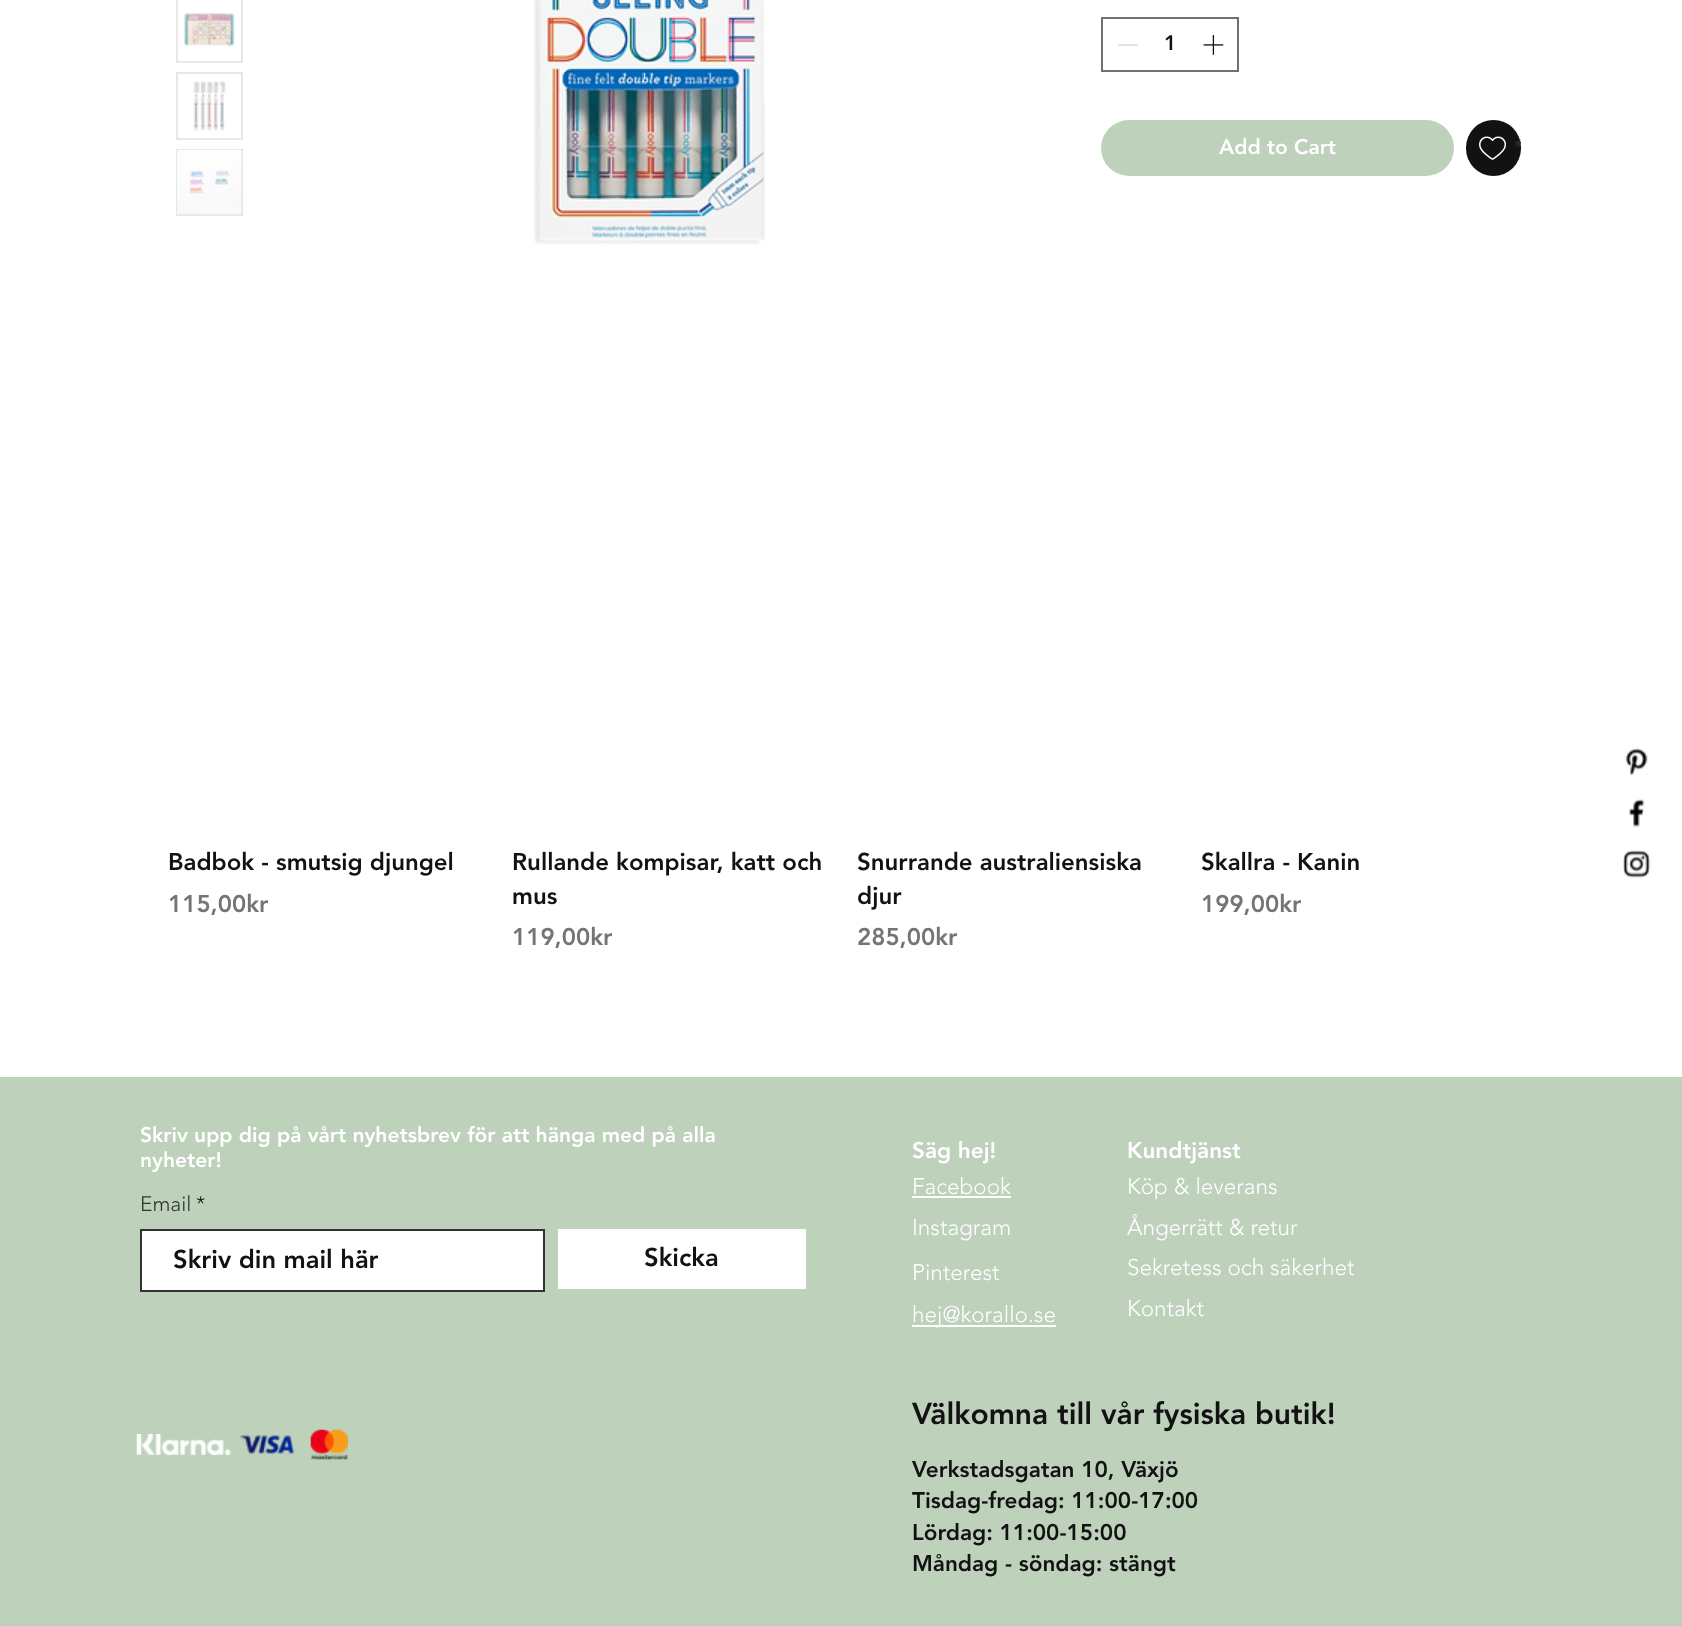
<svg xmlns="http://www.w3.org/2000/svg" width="1682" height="1626">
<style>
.a{font:900 21px 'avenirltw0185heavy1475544';fill:#121212}
.b{font:900 21px 'avenirltw0185heavy1475544';fill:#fff}
.c{font:italic 900 21px 'avenirltw0185heavy1475544';fill:#272727}
.d{font:900 24px 'avenirltw0185heavy1475544';fill:#121212}
.e{font:900 24px 'avenirltw0185heavy1475544';fill:#757575}
.f{font:300 21px 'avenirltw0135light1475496';fill:#2f342f}
.g{font:300 21px 'avenirltw0135light1475496';fill:#121212}
.h{font:900 25.5px 'avenirltw0185heavy1475544';fill:#121212}
.i{font:900 22.5px 'avenirltw0185heavy1475544';fill:#fff}
.j{font:300 22.5px 'avenirltw0135light1475496';fill:#fff}
.k{font:900 30px 'avenirltw0185heavy1475544';fill:#121212}
.l{font:900 22.5px 'avenirltw0185heavy1475544';fill:#121212}
</style>
<defs>
<clipPath id="clip1"><path d="M1466 123h55v48H1466z"/></clipPath>
</defs>
<rect width="100%" height="100%" fill="#fff"/>
<path fill="none" stroke="#e8e6e6" stroke-width="2" d="M177 -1h65v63H177z"/>
<image href="1.png" x="184" y="13" width="51" height="34"/>
<path fill="none" stroke="#e8e6e6" stroke-width="2" d="M177 73h65v66H177z"/>
<image href="2.png" x="193" y="81" width="33" height="50"/>
<path fill="none" stroke="#e8e6e6" stroke-width="2" d="M177 150h65v65H177z"/>
<image href="3.png" x="177" y="150" width="65" height="65"/>
<image href="4.png" x="533" y="0" width="232" height="245"/>
<path fill="none" stroke="#717171" stroke-width="2" d="M1102 18h136v53H1102z"/>
<path fill="#e3e3e3" d="M1118 44h20v2H1118z"/>
<image href="5.png" x="1203" y="35" width="21" height="20"/>
<rect fill="#bdd1bb" x="1101" y="120" width="353" height="56" rx="28"/>
<rect fill="#121212" x="1466" y="120" width="55" height="56" rx="27.5"/>
<image href="6.png" x="1479" y="136" width="27" height="24"/>
<image href="7.png" x="1625" y="748" width="23" height="28"/>
<image href="8.png" x="1628" y="799" width="17" height="29"/>
<image href="9.png" x="1623" y="850" width="28" height="28"/>
<path fill="#bdd1bb" d="M0 1077h1682v549H0z"/>
<path fill="#fff" stroke="#2f342f" stroke-width="2" d="M141 1230h403v61H141z"/>
<path fill="#fff" d="M558 1229h248v60H558z"/>
<path fill="#fff" d="M912 1196h99v2H912z"/>
<path fill="#fff" d="M912 1325h144v2H912z"/>
<image href="10.png" x="136" y="1434" width="95" height="21"/>
<image href="11.png" x="240" y="1435" width="54" height="19"/>
<image href="12.png" x="310" y="1429" width="38" height="31"/>
<text class="a" x="1164" y="50">1</text>
<text class="b" x="1219" y="154">Add to Cart</text>
<g clip-path="url(#clip1)">
<text class="c" x="1511" y="154">*</text>
</g>
<text class="d" x="168" y="870">Badbok - smutsig djungel</text>
<text class="e" x="168" y="912">115,00kr</text>
<text class="d" x="512" y="870">Rullande kompisar, katt och</text>
<text class="d" x="512" y="904">mus</text>
<text class="e" x="512" y="945">119,00kr</text>
<text class="d" x="857" y="870">Snurrande australiensiska</text>
<text class="d" x="857" y="904">djur</text>
<text class="e" x="857" y="945">285,00kr</text>
<text class="d" x="1201" y="870">Skallra - Kanin</text>
<text class="e" x="1201" y="912">199,00kr</text>
<text class="b" x="140" y="1142">Skriv upp dig på vårt nyhetsbrev för att hänga med på alla</text>
<text class="b" x="140" y="1167">nyheter!</text>
<text class="f" x="140" y="1211">Email</text>
<text class="g" x="196" y="1211">*</text>
<text class="h" x="173" y="1268">Skriv din mail här</text>
<text class="h" x="644" y="1266">Skicka</text>
<text class="i" x="912" y="1158">Säg hej!</text>
<text class="i" x="1127" y="1158">Kundtjänst</text>
<text class="j" x="912" y="1194">Facebook</text>
<text class="j" x="912" y="1235">Instagram</text>
<text class="j" x="912" y="1280">Pinterest</text>
<text class="j" x="912" y="1322">hej@korallo.se</text>
<text class="j" x="1127" y="1194">Köp &amp; leverans</text>
<text class="j" x="1127" y="1235">Ångerrätt &amp; retur</text>
<text class="j" x="1127" y="1275">Sekretess och säkerhet</text>
<text class="j" x="1127" y="1316">Kontakt</text>
<text class="k" x="912" y="1424">Välkomna till vår fysiska butik!</text>
<text class="l" x="912" y="1477">Verkstadsgatan 10, Växjö</text>
<text class="l" x="912" y="1508">Tisdag-fredag: 11:00-17:00</text>
<text class="l" x="912" y="1540">Lördag: 11:00-15:00</text>
<text class="l" x="912" y="1571">Måndag - söndag: stängt</text>
</svg>
